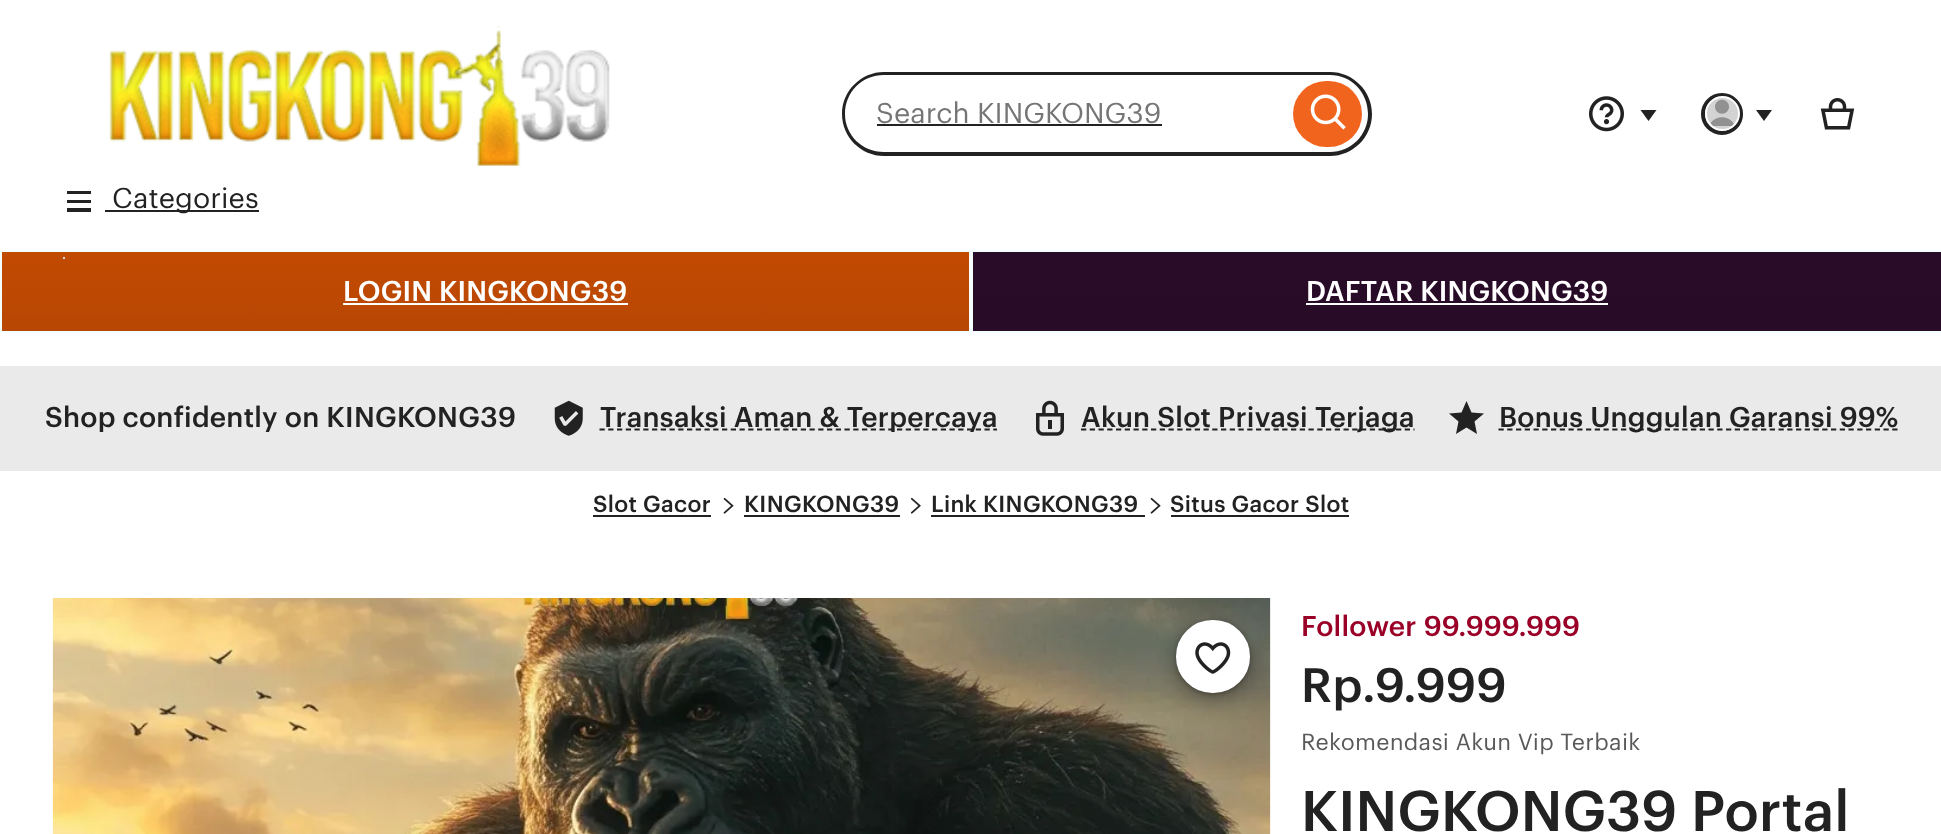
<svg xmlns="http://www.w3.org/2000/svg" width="1941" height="834">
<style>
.a{font:28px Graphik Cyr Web;fill:#757575}
.b{font:28px Graphik Cyr Web;fill:#222}
.c{font:500 28px Graphik Cyr Web;fill:#fff}
.d{font:500 28px Graphik Cyr Web;letter-spacing:0.15px;fill:#222}
.e{font:500 22.75px Graphik Cyr Web;letter-spacing:0.25px;fill:#222}
.f{font:500 28px Graphik Cyr Web;letter-spacing:0.15px;fill:#9a0027}
.g{font:500 47.25px Graphik Cyr Web;letter-spacing:0.25px;fill:#222}
.h{font:22.75px Graphik Cyr Web;letter-spacing:0.25px;fill:#595959}
.i{font:500 56px Graphik Cyr Web;fill:#222}
</style>
<defs>
<linearGradient id="g1" gradientUnits="userSpaceOnUse" x1="486" y1="252" x2="486" y2="331"><stop offset="0" stop-color="#c24a01"/><stop offset="1" stop-color="#b84704"/></linearGradient>
<linearGradient id="g2" gradientUnits="userSpaceOnUse" x1="1457" y1="252" x2="1457" y2="331"><stop offset="0" stop-color="#290c28"/><stop offset="1" stop-color="#280c27"/></linearGradient>
</defs>
<rect width="100%" height="100%" fill="#fff"/>
<path fill="#222" fill-rule="evenodd" d="M884 72h402v84h-402c-23 0-42-19-42-42c0-23 19-42 42-42zm0 3h402v77h-402c-22 0-39-17-39-38c0-22 17-39 39-39z"/>
<path fill="#222" d="M877 124h285v2H877z"/>
<path fill="#222" fill-rule="evenodd" d="M1286 72h44c23 0 42 19 42 42c0 23-19 42-42 42h-44zm0 3h44c21 0 38 17 38 39c0 21-17 38-38 38h-44z"/>
<rect fill="#f1641e" x="1293" y="81" width="69" height="66" rx="33"/>
<image href="1.png" x="1310" y="94" width="36" height="36"/>
<image href="2.png" x="1589" y="96" width="35" height="36"/>
<path fill="#222" d="M1656.5 110l-8 11l-8-11z"/>
<image href="3.png" x="1701" y="93" width="42" height="42"/>
<circle fill="none" stroke="#222" stroke-width="4" cx="1722" cy="114" r="19"/>
<circle fill="none" stroke="#fff" stroke-width="2" cx="1722.5" cy="113.5" r="16.5"/>
<path fill="#222" d="M1772 110l-8 11l-8-11z"/>
<image href="4.png" x="1820" y="98" width="35" height="32"/>
<image href="5.png" x="109" y="26" width="501" height="140"/>
<path fill="#222" d="M67 200h24v3H67z"/>
<path fill="#222" d="M67 208h24v4H67z"/>
<path fill="#222" d="M67 191h24v3H67z"/>
<path fill="#222" d="M105 210h154v2H105z"/>
<path fill="url(#g1)" d="M2 252h967v79H2z"/>
<path fill="none" stroke="#f4feff" stroke-width="2" d="M1 251h969v81H1z"/>
<path fill="#fff" d="M63 257h2v2H63z"/>
<path fill="#d4d4d4" d="M63 257h2v2z"/>
<path fill="#0e0e0e2e" d="M63 259v-2l2 2z"/>
<path fill="#fff" d="M343 303h285v2H343z"/>
<path fill="url(#g2)" d="M973 252h968v79H973z"/>
<path fill="none" stroke="#f4feff" stroke-width="2" d="M972 251h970v81H972z"/>
<path fill="#fff" d="M1306 303h302v2H1306z"/>
<path fill="#eaeaea" d="M0 366h1941v105H0z"/>
<image href="6.png" x="554" y="400" width="29" height="36"/>
<path fill="none" stroke="#222" stroke-width="1.8" stroke-dasharray="5.25 3.5" d="M599.5 429.5h397.5"/>
<image href="7.png" x="1036" y="400" width="28" height="36"/>
<path fill="none" stroke="#222" stroke-width="1.8" stroke-dasharray="5.25 3.5" d="M1081 429.5h333.5"/>
<path fill="#222" d="M1471.5 412.5l-5-11.5l-5 11.5l-12.5 1l9.5 8l-2.5 12.5l10.5-6.5l10.5 6.5l-2.5-12.5l9.5-8z"/>
<path fill="none" stroke="#222" stroke-width="1.8" stroke-dasharray="5.25 3.5" d="M1498.5 429.5h399"/>
<path fill="#222" d="M593 515h118v2H593z"/>
<image href="8.png" x="723" y="497" width="11" height="17"/>
<path fill="#222" d="M744 515h156v2H744z"/>
<image href="9.png" x="910" y="497" width="11" height="17"/>
<path fill="#222" d="M931 515h214v2H931z"/>
<image href="8.png" x="1150" y="497" width="11" height="17"/>
<path fill="#222" d="M1171 515h178v2H1171z"/>
<image href="10.png" x="52" y="598" width="1219" height="236"/>
<rect fill="#00000026" filter="blur(7px)" x="1171" y="621" width="84" height="84" rx="42"/>
<rect fill="#0000004d" filter="blur(2.5px)" x="1176" y="621" width="74" height="74" rx="37"/>
<rect fill="#fff" stroke="#fff" stroke-width="2" x="1177" y="621" width="72" height="71" rx="35.5"/>
<image href="11.png" x="1195" y="642" width="36" height="32"/>
<text class="a" x="876" y="123">Search KINGKONG39</text>
<text class="b" x="112" y="208">Categories</text>
<text class="c" x="343" y="301">LOGIN KINGKONG39</text>
<text class="c" x="1306" y="301">DAFTAR KINGKONG39</text>
<text class="d" x="45" y="427">Shop confidently on KINGKONG39</text>
<text class="d" x="600" y="427">Transaksi Aman &amp; Terpercaya</text>
<text class="d" x="1081" y="427">Akun Slot Privasi Terjaga</text>
<text class="d" x="1499" y="427">Bonus Unggulan Garansi 99%</text>
<text class="e" x="593" y="512">Slot Gacor</text>
<text class="e" x="744" y="512">KINGKONG39</text>
<text class="e" x="931" y="512">Link KINGKONG39</text>
<text class="e" x="1170" y="512">Situs Gacor Slot</text>
<text class="f" x="1301" y="636">Follower 99.999.999</text>
<text class="g" x="1301" y="702">Rp.9.999</text>
<text class="h" x="1301" y="750">Rekomendasi Akun Vip Terbaik</text>
<text class="i" x="1301" y="831">KINGKONG39 Portal</text>
</svg>
